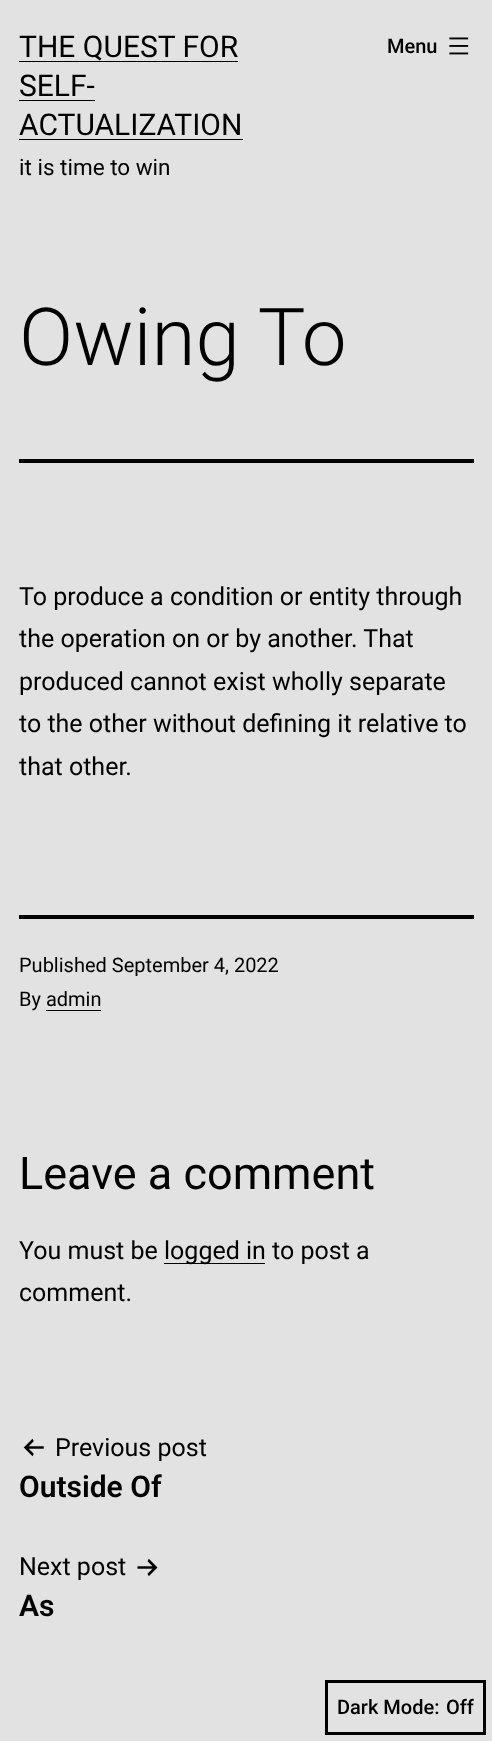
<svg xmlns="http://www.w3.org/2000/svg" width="492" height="1741">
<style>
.a{font:30px Roboto;fill:#000}
.b{font:22.5px Roboto;fill:#000}
.c{font:500 20px Roboto;fill:#000}
.d{font:300 80px Roboto;fill:#000}
.e{font:25px Roboto;fill:#000}
.f{font:20px Roboto;fill:#000}
.g{font:45px Roboto;fill:#000}
.h{font:600 30px Roboto;fill:#000}
</style>
<rect width="100%" height="100%" fill="#e2e2e2"/>
<path fill="#000" d="M19 61h219v1H19z"/>
<path fill="#000" d="M19 100h76v1H19z"/>
<path fill="#000" d="M19 139h224v1H19z"/>
<image href="1.png" x="449" y="37" width="20" height="18"/>
<path fill="#000" d="M19 459h455v4H19z"/>
<path fill="#000" d="M19 915h455v4H19z"/>
<path fill="#000" d="M46 1010h55v1H46z"/>
<path fill="#000" d="M164 1263h101v1H164z"/>
<image href="2.png" x="23" y="1438" width="21" height="19"/>
<image href="3.png" x="137" y="1558" width="21" height="19"/>
<path fill="none" stroke="#000" stroke-width="3" d="M326.5 1681.5h158v52H326.5z"/>
<text class="a" x="19" y="57">THE QUEST FOR</text>
<text class="a" x="19" y="96">SELF-</text>
<text class="a" x="19" y="135">ACTUALIZATION</text>
<text class="b" x="19" y="175">it is time to win</text>
<text class="c" x="387" y="53">Menu</text>
<text class="d" x="19" y="365">Owing To</text>
<text class="e" x="19" y="605">To produce a condition or entity through</text>
<text class="e" x="19" y="647">the operation on or by another. That</text>
<text class="e" x="19" y="690">produced cannot exist wholly separate</text>
<text class="e" x="19" y="732">to the other without defining it relative to</text>
<text class="e" x="19" y="775">that other.</text>
<text class="f" x="19" y="972">Published September 4, 2022</text>
<text class="f" x="19" y="1006">By admin</text>
<text class="g" x="19" y="1189">Leave a comment</text>
<text class="e" x="19" y="1259">You must be</text>
<text class="e" x="164" y="1259">logged in to post a</text>
<text class="e" x="19" y="1301">comment.</text>
<text class="e" x="55" y="1456">Previous post</text>
<text class="h" x="19" y="1497">Outside Of</text>
<text class="e" x="19" y="1575">Next post</text>
<text class="h" x="19" y="1616">As</text>
<text class="c" x="337" y="1714">Dark Mode:</text>
<text class="c" x="446" y="1714">Off</text>
</svg>
